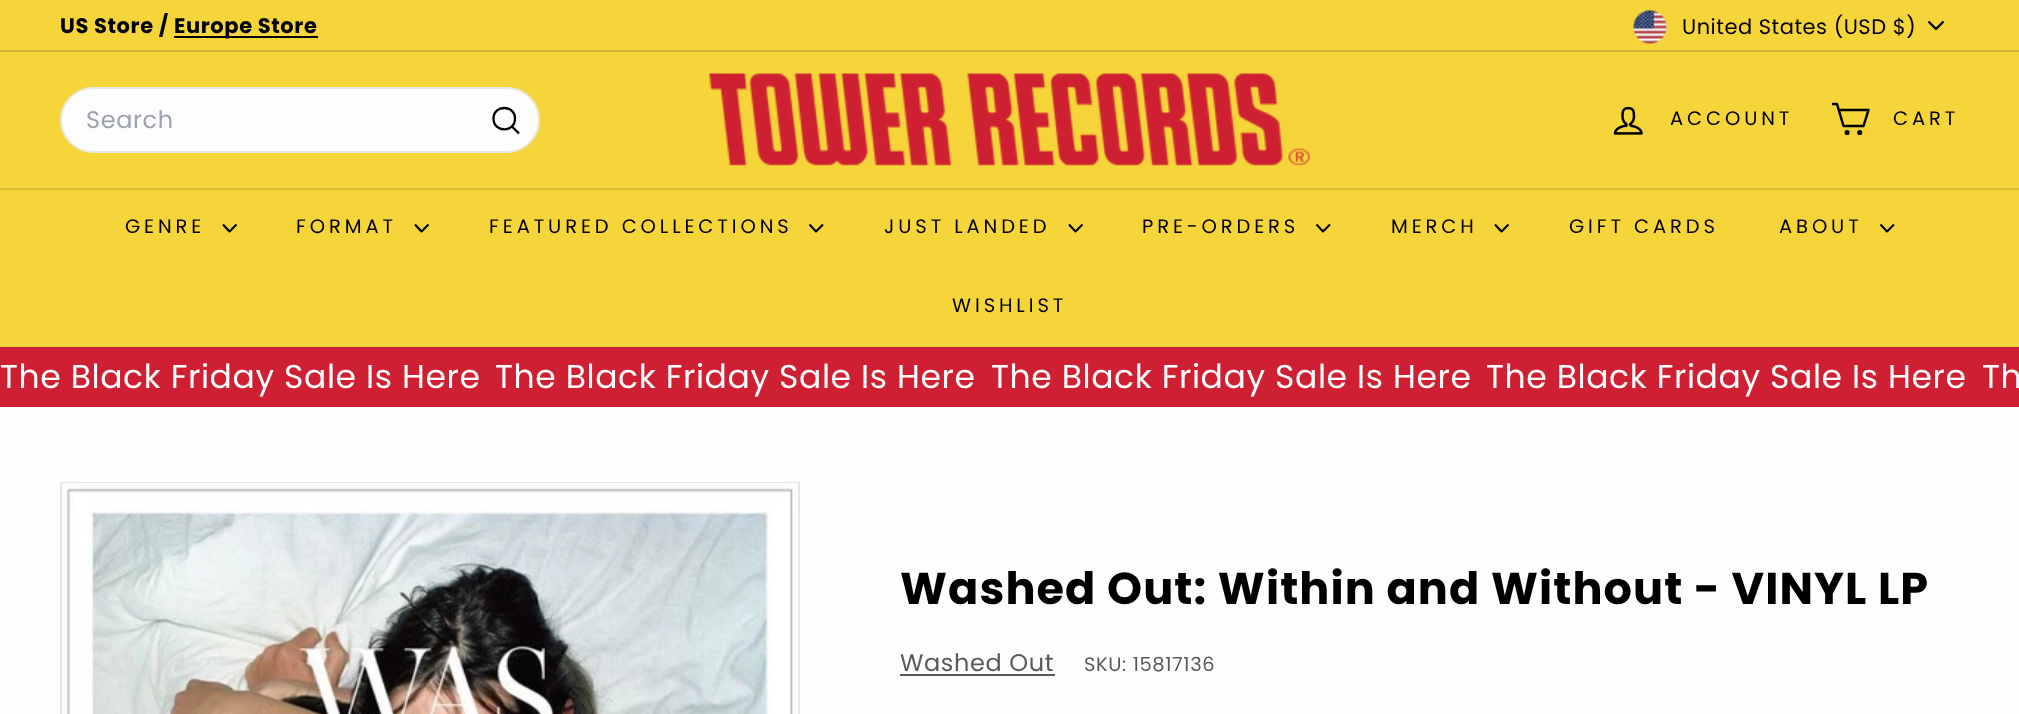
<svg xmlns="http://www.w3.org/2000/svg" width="2019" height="714">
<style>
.a{font:bold 21px Poppins;letter-spacing:0.6px;fill:#000}
.b{font:21px Poppins;letter-spacing:0.5px;fill:#000}
.c{font:24px Poppins;letter-spacing:0.6px;fill:#9ca3af}
.d{font:19.5px Poppins;letter-spacing:3.9px;fill:#000}
.e{font:33px Poppins;letter-spacing:0.6px;fill:#fdfdfd}
.f{font:bold 44.6px Poppins;letter-spacing:1.1px;fill:#000}
.g{font:24px Poppins;letter-spacing:0.6px;fill:#595959}
.h{font:19.5px Poppins;letter-spacing:0.6px;fill:#595959}
</style>
<rect width="100%" height="100%" fill="#fdfdfd"/>
<path fill="#f6d53b" d="M0 0h2019v50H0z"/>
<path fill="#000" d="M174 36h144v2H174z"/>
<image href="1.png" x="1633" y="10" width="34" height="34"/>
<path fill="none" stroke="#000" stroke-width="2.4" stroke-linejoin="round" d="M1928.5 21.5l7.5 7.5l7.5-7.5"/>
<path fill="#d1b532" d="M0 50h2019v2H0z"/>
<path fill="#f6d53b" d="M0 52h2019v136H0z"/>
<rect fill="#fdfdfd" stroke="#e8e8e1" stroke-width="2" x="61" y="88" width="478" height="64" rx="32"/>
<path fill="none" stroke="#000" stroke-width="2.3" stroke-linejoin="round" d="M515 118.5c0 14.5-21.5 14.5-21.5 0c0-14 21.5-14 21.5 0m4 15l-7-7"/>
<image href="2.png" x="709" y="73" width="601" height="93"/>
<image href="3.png" x="1613" y="106" width="30" height="29"/>
<path fill="none" stroke="#000" stroke-width="2.5" stroke-linejoin="round" d="M1839 110h29.5l-5 16h-20l-6.5-22h-5"/>
<circle fill="none" stroke="#000" stroke-width="2.5" cx="1847.1" cy="132.5" r="1.3"/>
<circle fill="none" stroke="#000" stroke-width="2.5" cx="1859.7" cy="132.5" r="1.3"/>
<path fill="#f6d53b" d="M0 190h2019v157H0z"/>
<path fill="#ddc035" d="M0 188h2019v2H0z"/>
<path fill="none" stroke="#000" stroke-width="2.1" stroke-linejoin="round" d="M223 224.5l6.5 7l7-7"/>
<path fill="none" stroke="#000" stroke-width="2.1" stroke-linejoin="round" d="M415 224.5l6.5 7l7-7"/>
<path fill="none" stroke="#000" stroke-width="2.1" stroke-linejoin="round" d="M809.5 224.5l6.5 7l7-7"/>
<path fill="none" stroke="#000" stroke-width="2.1" stroke-linejoin="round" d="M1069 224.5l6.5 7l7-7"/>
<path fill="none" stroke="#000" stroke-width="2.1" stroke-linejoin="round" d="M1316.5 224.5l6.5 7l7-7"/>
<path fill="none" stroke="#000" stroke-width="2.1" stroke-linejoin="round" d="M1495 224.5l6.5 7l7-7"/>
<path fill="none" stroke="#000" stroke-width="2.1" stroke-linejoin="round" d="M1880.5 224.5l6.5 7l7-7"/>
<path fill="#ce2032" d="M0 347h2019v60H0z"/>
<path fill="none" stroke="#e8e8e1" stroke-width="2" d="M61 483h738v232H61z"/>
<path fill="#fdfdfd" d="M62 483h736v1H62z"/>
<image href="4.png" x="67" y="486" width="727" height="228"/>
<path fill="#595959" d="M900 674h155v2H900z"/>
<text class="a" x="60" y="33">US Store /</text>
<text class="a" x="174" y="33">Europe Store</text>
<text class="b" x="1682" y="34">United States (USD $)</text>
<text class="c" x="86" y="128">Search</text>
<text class="d" x="1670" y="125">ACCOUNT</text>
<text class="d" x="1893" y="125">CART</text>
<text class="d" x="125" y="233">GENRE</text>
<text class="d" x="296" y="233">FORMAT</text>
<text class="d" x="489" y="233">FEATURED COLLECTIONS</text>
<text class="d" x="884" y="233">JUST LANDED</text>
<text class="d" x="1142" y="233">PRE-ORDERS</text>
<text class="d" x="1391" y="233">MERCH</text>
<text class="d" x="1569" y="233">GIFT CARDS</text>
<text class="d" x="1779" y="233">ABOUT</text>
<text class="d" x="952" y="312">WISHLIST</text>
<text class="e" x="0" y="388">The Black Friday Sale Is Here</text>
<text class="e" x="495" y="388">The Black Friday Sale Is Here</text>
<text class="e" x="991" y="388">The Black Friday Sale Is Here</text>
<text class="e" x="1486" y="388">The Black Friday Sale Is Here</text>
<text class="e" x="1982" y="388">Th</text>
<text class="f" x="900" y="604">Washed Out: Within and Without - VINYL LP</text>
<text class="g" x="900" y="671">Washed Out</text>
<text class="h" x="1084" y="671">SKU: 15817136</text>
</svg>
